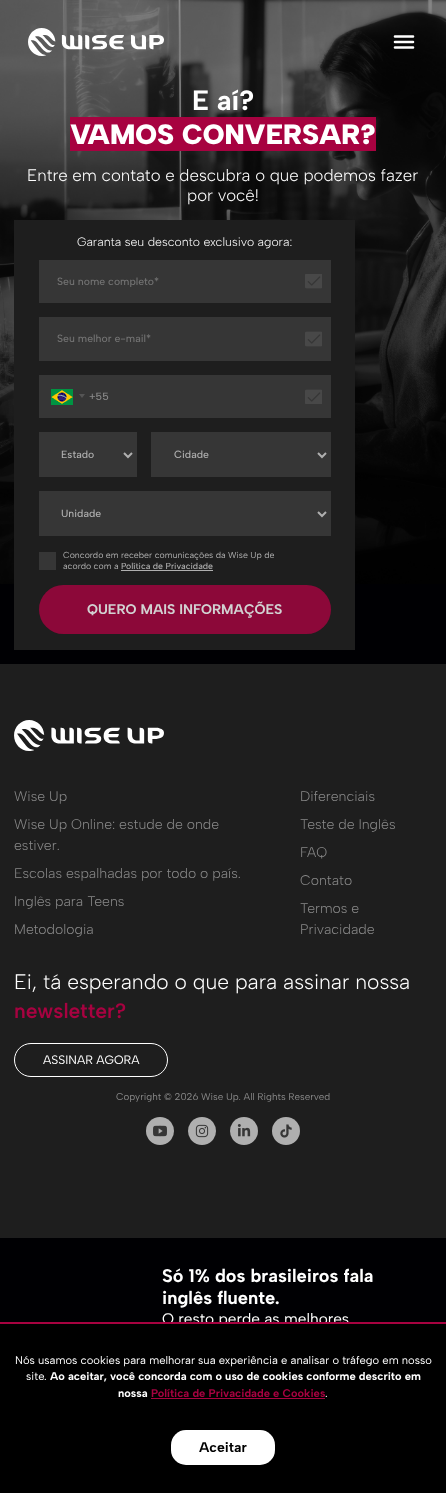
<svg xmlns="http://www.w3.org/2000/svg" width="446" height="1493">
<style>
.a{font:bold 28px Albert Sans;fill:#fff}
.b{font:900 28px Albert Sans;fill:#fff}
.c{font:300 16.8px Albert Sans;fill:#fff}
.d{font:300 12.25px Albert Sans;fill:#fff}
.e{font:500 10.5px Albert Sans;fill:#737373}
.f{font:500 10.5px Albert Sans;fill:#888}
.g{font:500 10.5px Albert Sans;fill:#afafaf}
.h{font:8.75px Albert Sans;fill:#afafaf}
.i{font:500 8.75px Albert Sans;fill:#afafaf}
.j{font:bold 14px Albert Sans;fill:#d2d2d2}
.k{font:300 14px Albert Sans;fill:#888}
.l{font:300 21px Albert Sans;fill:#fff}
.m{font:600 21px Albert Sans;fill:#a70240}
.n{font:12.25px Albert Sans;fill:#fff}
.o{font:9.8px Albert Sans;fill:#888}
.p{font:bold 18.25px Albert Sans;fill:#fff}
.q{font:15.4px Albert Sans;fill:#fff}
.r{font:11.2px Albert Sans;fill:#fff}
.s{font:bold 11.2px Albert Sans;fill:#fff}
.t{font:bold 11.2px Albert Sans;fill:#a70240}
.u{font:bold 14px Albert Sans;fill:#000}
</style>
<rect width="100%" height="100%" fill="#1e1e1e"/>
<path fill="#000003" d="M0 584h446v80H0z"/>
<image href="1.png" x="0" y="0" width="446" height="584"/>
<image href="2.png" x="28" y="28" width="136" height="28"/>
<path fill="none" stroke="#fff" stroke-width="2.6" stroke-linecap="round" d="M395 36.5h18m-18 5.5h18m-18 5.5h18"/>
<path fill="#a70240" d="M70 117h306v34H70z"/>
<path fill="#1e1e1e" d="M14 220h341v430H14z"/>
<path fill="#363636" d="M39 260h292v43H39z"/>
<image href="3.png" x="305" y="274" width="17" height="15"/>
<path fill="#363636" d="M39 317h292v44H39z"/>
<image href="4.png" x="305" y="331" width="17" height="16"/>
<path fill="#363636" d="M39 375h292v43H39z"/>
<image href="5.png" x="51" y="389" width="22" height="16"/>
<path fill="#555" d="M79 394h6l-3 4z"/>
<image href="6.png" x="305" y="389" width="17" height="15"/>
<path fill="#363636" d="M39 432h98v45H39z"/>
<path fill="none" stroke="#afafaf" stroke-width="2" d="M124 453l4 4l4-4"/>
<path fill="#363636" d="M151 432h180v45H151z"/>
<path fill="none" stroke="#afafaf" stroke-width="2" d="M318 453l4 4l4-4"/>
<path fill="#363636" d="M39 491h292v45H39z"/>
<path fill="none" stroke="#afafaf" stroke-width="2" d="M318 512l4 4l4-4"/>
<path fill="#363636" d="M39 552h17v18H39z"/>
<path fill="#afafaf" d="M121 570h92v1H121z"/>
<rect fill="#8c0839" x="39" y="585" width="292" height="49" rx="24.5"/>
<image href="7.png" x="14" y="720" width="150" height="31"/>
<rect fill="none" stroke="#fff" x="14.5" y="1043.5" width="153" height="33" rx="16.5"/>
<circle fill="#afafaf" cx="160" cy="1131" r="14"/>
<image href="8.png" x="153" y="1125" width="14" height="12"/>
<circle fill="#afafaf" cx="202" cy="1131" r="14"/>
<image href="9.png" x="195" y="1124" width="14" height="14"/>
<circle fill="#afafaf" cx="244" cy="1131" r="14"/>
<image href="10.png" x="237" y="1124" width="14" height="13"/>
<circle fill="#afafaf" cx="286" cy="1131" r="14"/>
<image href="11.png" x="280" y="1124" width="12" height="14"/>
<path fill="#000003" d="M0 1238h446v84H0z"/>
<text class="a" x="192" y="110">E aí?</text>
<text class="b" x="70" y="144">VAMOS CONVERSAR?</text>
<text class="c" x="27" y="181">Entre em contato e descubra o que podemos fazer</text>
<text class="c" x="187" y="201">por você!</text>
<text class="d" x="77" y="246">Garanta seu desconto exclusivo agora:</text>
<text class="e" x="57" y="285">Seu nome completo*</text>
<text class="e" x="57" y="342">Seu melhor e-mail*</text>
<text class="f" x="89" y="400">+55</text>
<text class="g" x="61" y="458">Estado</text>
<text class="g" x="174" y="458">Cidade</text>
<text class="g" x="61" y="517">Unidade</text>
<text class="h" x="63" y="558">Concordo em receber comunicações da Wise Up de</text>
<text class="h" x="63" y="569">acordo com a</text>
<text class="i" x="121" y="569">Política de Privacidade</text>
<text class="j" x="87" y="614">QUERO MAIS INFORMAÇÕES</text>
<text class="k" x="14" y="801">Wise Up</text>
<text class="k" x="14" y="829">Wise Up Online: estude de onde</text>
<text class="k" x="14" y="850">estiver.</text>
<text class="k" x="14" y="878">Escolas espalhadas por todo o país.</text>
<text class="k" x="14" y="906">Inglês para Teens</text>
<text class="k" x="14" y="934">Metodologia</text>
<text class="k" x="300" y="801">Diferenciais</text>
<text class="k" x="300" y="829">Teste de Inglês</text>
<text class="k" x="300" y="857">FAQ</text>
<text class="k" x="300" y="885">Contato</text>
<text class="k" x="300" y="913">Termos e</text>
<text class="k" x="300" y="934">Privacidade</text>
<text class="l" x="14" y="989">Ei, tá esperando o que para assinar nossa</text>
<text class="m" x="14" y="1018">newsletter?</text>
<text class="n" x="43" y="1064">ASSINAR AGORA</text>
<text class="o" x="116" y="1100">Copyright © 2026 Wise Up. All Rights Reserved</text>
<text class="p" x="162" y="1282">Só 1% dos brasileiros fala</text>
<text class="p" x="162" y="1304">inglês fluente.</text>
<text class="q" x="162" y="1324">O resto perde as melhores</text>
<path fill="#000" d="M0 1324h446v169H0z"/>
<path fill="#a70240" d="M0 1322h446v2H0z"/>
<text class="r" x="15" y="1364">Nós usamos cookies para melhorar sua experiência e analisar o tráfego em nosso</text>
<text class="r" x="26" y="1380">site.</text>
<text class="s" x="50" y="1380">Ao aceitar, você concorda com o uso de cookies conforme descrito em</text>
<text class="s" x="118" y="1397">nossa</text>
<path fill="#a70240" d="M151 1398h174v1H151z"/>
<text class="t" x="151" y="1397">Política de Privacidade e Cookies</text>
<text class="r" x="325" y="1397">.</text>
<rect fill="#fff" x="171" y="1430" width="104" height="35" rx="15"/>
<text class="u" x="199" y="1452">Aceitar</text>
</svg>
